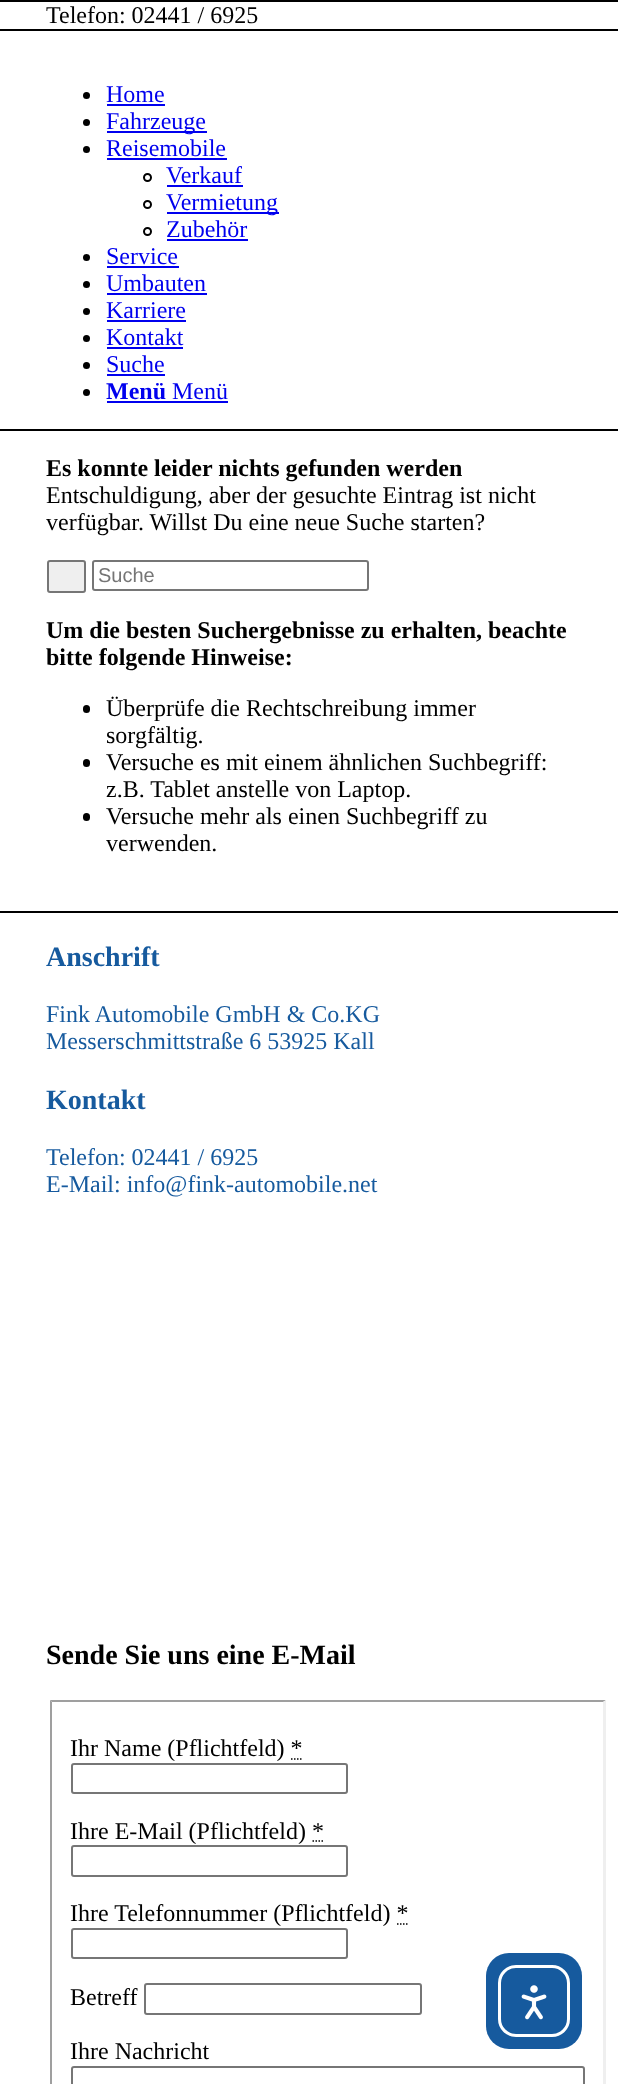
<svg xmlns="http://www.w3.org/2000/svg" width="618" height="2084">
<style>
.a{font:24px Liberation Serif;fill:#000}
.b{font:24px Liberation Serif;fill:#00e}
.c{font:bold 24px Liberation Serif;fill:#00e}
.d{font:bold 24px Liberation Serif;fill:#000}
.e{font:20px Liberation Sans;fill:#757575}
.f{font:bold 28px Liberation Serif;fill:#165a9e}
.g{font:24px Liberation Serif;fill:#165a9e}
.h{font:bold 28px Liberation Serif;fill:#000}
</style>
<rect width="100%" height="100%" fill="#fff"/>
<path fill="#000" d="M0 0h618v2H0z"/>
<path fill="#000" d="M0 29h618v2H0z"/>
<circle fill="#000" cx="86.5" cy="95.5" r="3.5"/>
<path fill="#00e" d="M107 104h58v2H107z"/>
<circle fill="#000" cx="86.5" cy="122.5" r="3.5"/>
<path fill="#00e" d="M107 131h100v2H107z"/>
<circle fill="#000" cx="86.5" cy="149.5" r="3.5"/>
<path fill="#00e" d="M107 158h120v2H107z"/>
<circle fill="none" stroke="#000" stroke-width="2" cx="147.5" cy="177.5" r="3.5"/>
<path fill="#00e" d="M167 185h76v2H167z"/>
<circle fill="none" stroke="#000" stroke-width="2" cx="147.5" cy="204.5" r="3.5"/>
<path fill="#00e" d="M167 212h112v2H167z"/>
<circle fill="none" stroke="#000" stroke-width="2" cx="147.5" cy="231.5" r="3.5"/>
<path fill="#00e" d="M167 239h81v2H167z"/>
<circle fill="#000" cx="86.5" cy="257.5" r="3.5"/>
<path fill="#00e" d="M107 266h72v2H107z"/>
<circle fill="#000" cx="86.5" cy="284.5" r="3.5"/>
<path fill="#00e" d="M107 293h100v2H107z"/>
<circle fill="#000" cx="86.5" cy="311.5" r="3.5"/>
<path fill="#00e" d="M107 320h79v2H107z"/>
<circle fill="#000" cx="86.5" cy="338.5" r="3.5"/>
<path fill="#00e" d="M107 347h76v2H107z"/>
<circle fill="#000" cx="86.5" cy="365.5" r="3.5"/>
<path fill="#00e" d="M107 374h58v2H107z"/>
<circle fill="#000" cx="86.5" cy="392.5" r="3.5"/>
<path fill="#00e" d="M107 401h121v2H107z"/>
<path fill="#000" d="M0 429h618v2H0z"/>
<rect fill="#efefef" stroke="#767676" stroke-width="2" x="48" y="561" width="37" height="31" rx="2"/>
<rect fill="none" stroke="#767676" stroke-width="2" x="93" y="561" width="275" height="29" rx="2"/>
<rect fill="#000" x="83" y="705" width="7" height="8" rx="3.5"/>
<rect fill="#000" x="83" y="759" width="7" height="8" rx="3.5"/>
<rect fill="#000" x="83" y="813" width="7" height="8" rx="3.5"/>
<path fill="#000" d="M0 911h618v2H0z"/>
<path fill="#9f9f9f" d="M50 1700h556l-3 2h-551z"/>
<path fill="#efefef" d="M606 1700v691l-3-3v-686z"/>
<path fill="#9f9f9f" d="M50 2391v-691l2 2v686z"/>
<path fill="none" stroke="#000" stroke-width="1.5" stroke-dasharray="1.5 1.5" d="M291 1759h12"/>
<rect fill="none" stroke="#767676" stroke-width="2" x="72" y="1764" width="275" height="29" rx="2"/>
<path fill="none" stroke="#000" stroke-width="1.5" stroke-dasharray="1.5 1.5" d="M312.5 1841h12"/>
<rect fill="none" stroke="#767676" stroke-width="2" x="72" y="1846" width="275" height="30" rx="2"/>
<path fill="none" stroke="#000" stroke-width="1.5" stroke-dasharray="1.5 1.5" d="M397 1924h12"/>
<rect fill="none" stroke="#767676" stroke-width="2" x="72" y="1929" width="275" height="29" rx="2"/>
<rect fill="none" stroke="#767676" stroke-width="2" x="145" y="1984" width="276" height="30" rx="2"/>
<rect fill="none" stroke="#767676" stroke-width="2" x="72" y="2067" width="512" height="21" rx="2"/>
<rect fill="#165a9e" x="486" y="1953" width="96" height="96" rx="23"/>
<rect fill="none" stroke="#fff" stroke-width="3" x="499.5" y="1966.5" width="69" height="69" rx="16.5"/>
<image href="1.png" x="521" y="1985" width="26" height="35"/>
<text class="a" x="46" y="23">Telefon: 02441 / 6925</text>
<text class="b" x="106" y="102">Home</text>
<text class="b" x="106" y="129">Fahrzeuge</text>
<text class="b" x="106" y="156">Reisemobile</text>
<text class="b" x="166" y="183">Verkauf</text>
<text class="b" x="166" y="210">Vermietung</text>
<text class="b" x="166" y="237">Zubehör</text>
<text class="b" x="106" y="264">Service</text>
<text class="b" x="106" y="291">Umbauten</text>
<text class="b" x="106" y="318">Karriere</text>
<text class="b" x="106" y="345">Kontakt</text>
<text class="b" x="106" y="372">Suche</text>
<text class="c" x="106" y="399">Menü</text>
<text class="b" x="172" y="399">Menü</text>
<text class="d" x="46" y="476">Es konnte leider nichts gefunden werden</text>
<text class="a" x="46" y="503">Entschuldigung, aber der gesuchte Eintrag ist nicht</text>
<text class="a" x="46" y="530">verfügbar. Willst Du eine neue Suche starten?</text>
<text class="e" x="98" y="582">Suche</text>
<text class="d" x="46" y="638">Um die besten Suchergebnisse zu erhalten, beachte</text>
<text class="d" x="46" y="665">bitte folgende Hinweise:</text>
<text class="a" x="106" y="716">Überprüfe die Rechtschreibung immer</text>
<text class="a" x="106" y="743">sorgfältig.</text>
<text class="a" x="106" y="770">Versuche es mit einem ähnlichen Suchbegriff:</text>
<text class="a" x="106" y="797">z.B. Tablet anstelle von Laptop.</text>
<text class="a" x="106" y="824">Versuche mehr als einen Suchbegriff zu</text>
<text class="a" x="106" y="851">verwenden.</text>
<text class="f" x="46" y="966">Anschrift</text>
<text class="g" x="46" y="1022">Fink Automobile GmbH &amp; Co.KG</text>
<text class="g" x="46" y="1049">Messerschmittstraße 6 53925 Kall</text>
<text class="f" x="46" y="1109">Kontakt</text>
<text class="g" x="46" y="1165">Telefon: 02441 / 6925</text>
<text class="g" x="46" y="1192">E-Mail: info@fink-automobile.net</text>
<text class="h" x="46" y="1664">Sende Sie uns eine E-Mail</text>
<text class="a" x="70" y="1756">Ihr Name (Pflichtfeld) *</text>
<text class="a" x="70" y="1839">Ihre E-Mail (Pflichtfeld) *</text>
<text class="a" x="70" y="1921">Ihre Telefonnummer (Pflichtfeld) *</text>
<text class="a" x="70" y="2005">Betreff</text>
<text class="a" x="70" y="2059">Ihre Nachricht</text>
</svg>
